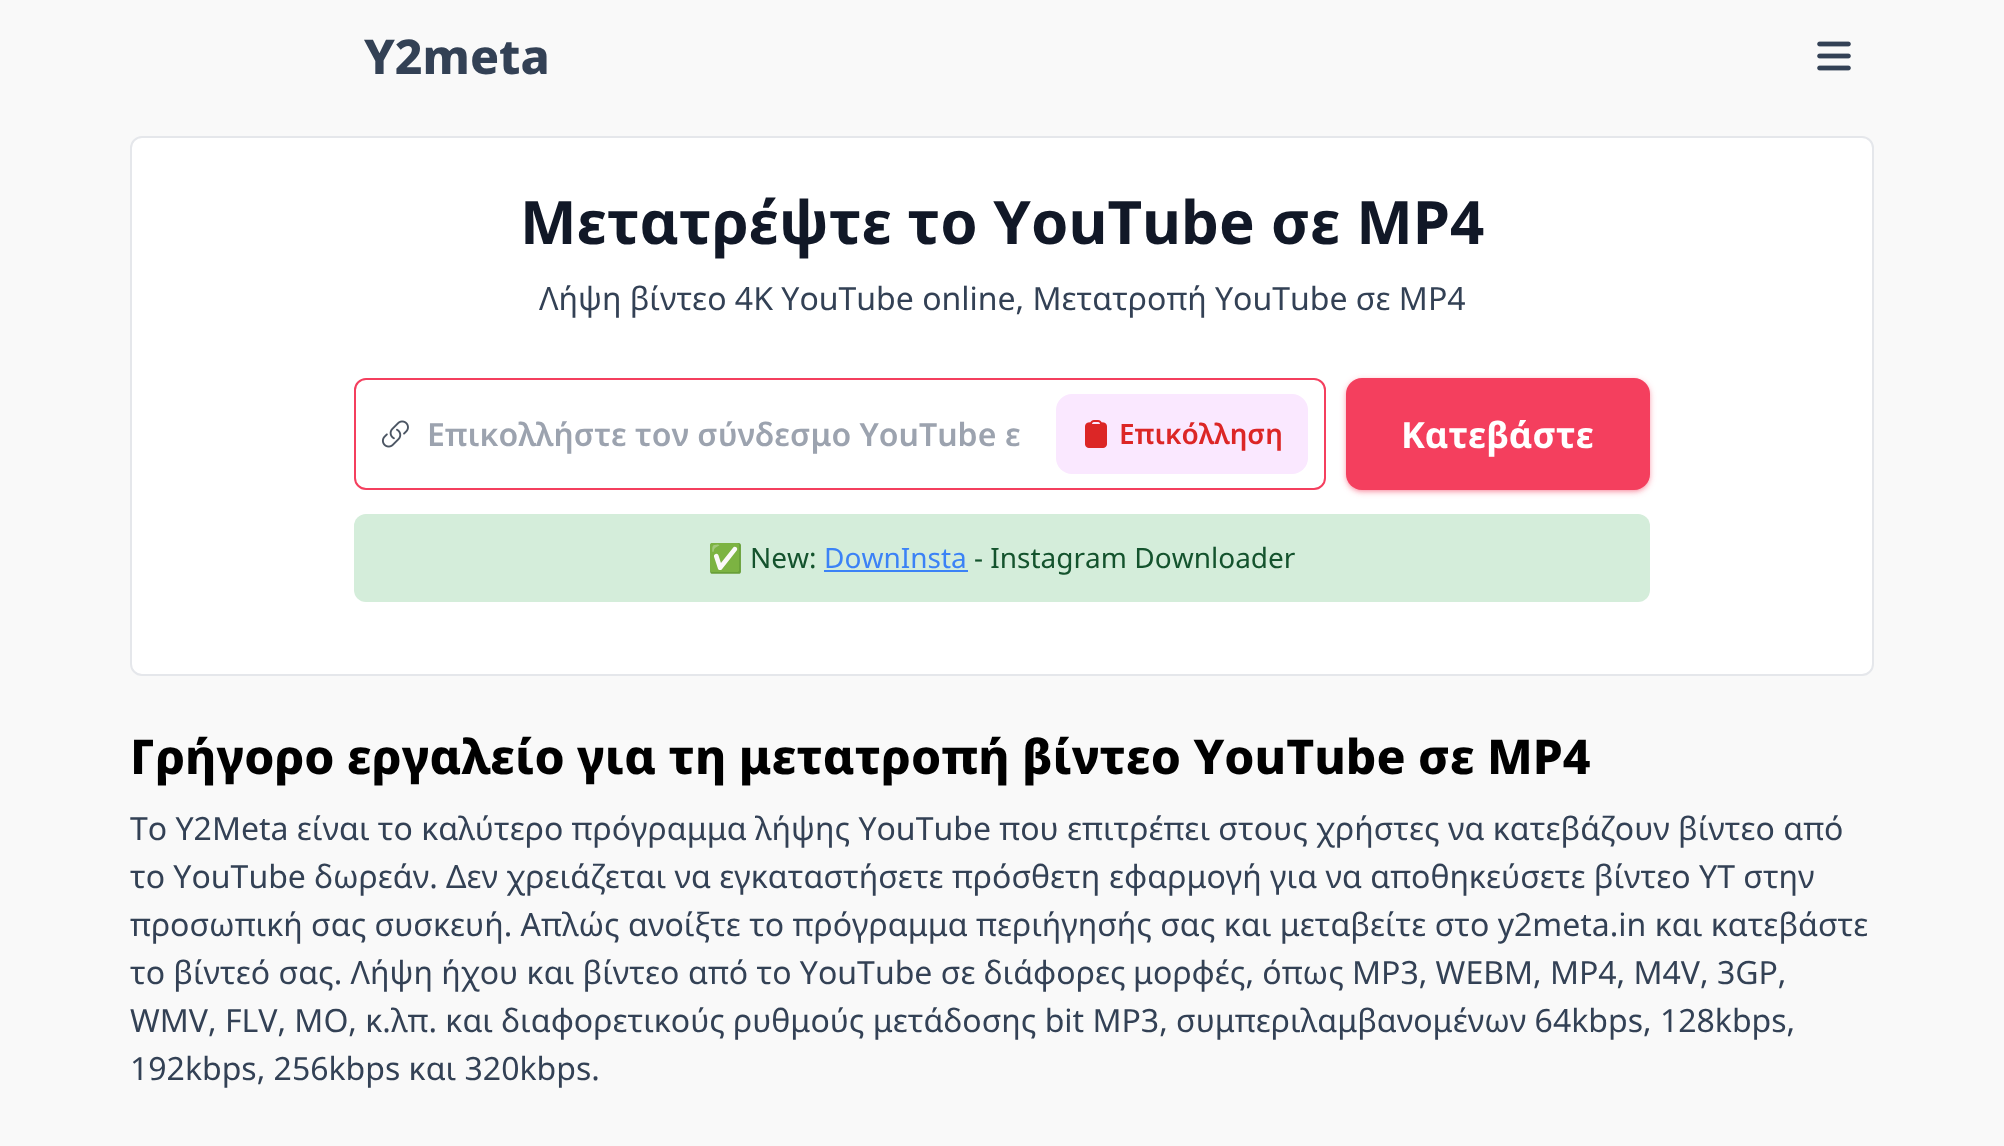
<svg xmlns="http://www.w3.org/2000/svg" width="2004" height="1146">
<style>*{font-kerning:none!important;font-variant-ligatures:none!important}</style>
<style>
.a{font:800 48px Noto Sans;fill:#334155}
.b{font:bold 60px Noto Sans;fill:#111827}
.c{font:32px Noto Sans;fill:#334155}
.d{font:600 32px Noto Sans;fill:#9ca3af}
.e{font:600 28px Noto Sans;fill:#dc2626}
.f{font:bold 36px Noto Sans;fill:#fff}
.g{font:28px Noto Color Emoji;fill:#14532d}
.h{font:28px Noto Sans;fill:#14532d}
.i{font:28px Noto Sans;fill:#3b82f6}
.j{font:800 48px Noto Sans;fill:#000}
</style>
<rect width="100%" height="100%" fill="#f9f9f9"/>
<image href="1.png" x="1817" y="41" width="34" height="30"/>
<rect fill="#fff" stroke="#e5e7eb" stroke-width="2" x="131" y="137" width="1742" height="538" rx="11"/>
<rect fill="none" stroke="#f43f5e" stroke-width="2" x="355" y="379" width="970" height="110" rx="11"/>
<image href="2.png" x="381" y="420" width="28" height="28"/>
<rect fill="#fae8ff" x="1056" y="394" width="252" height="80" rx="16"/>
<image href="3.png" x="1085" y="420" width="22" height="28"/>
<rect fill="#f43f5e66" filter="blur(2px)" x="1348" y="382" width="300" height="108" rx="14"/>
<rect fill="#f43f5e66" filter="blur(3px)" x="1346" y="380" width="304" height="112" rx="16"/>
<rect fill="#f43f5e" x="1346" y="378" width="304" height="112" rx="16"/>
<rect fill="#d4edda" x="354" y="514" width="1296" height="88" rx="12"/>
<path fill="#3b82f6" d="M824 570h144v2H824z"/>
<text class="a" x="364" y="74">Y2meta</text>
<text class="b" x="520" y="244">Μετατρέψτε το YouTube</text>
<text class="b" x="1271" y="244">σε MP4</text>
<text class="c" x="539" y="310">Λήψη βίντεο 4K YouTube online, Μετατροπή</text>
<text class="c" x="1215" y="310">YouTube σε MP4</text>
<text class="d" x="427" y="446">Επικολλήστε τον σύνδεσμο YouTube</text>
<text class="d" x="1005" y="446">ε</text>
<text class="e" x="1119" y="444">Επικόλληση</text>
<text class="f" x="1401" y="448">Κατεβάστε</text>
<text class="g" x="708" y="568">✅</text>
<text class="h" x="750" y="568">New:</text>
<text class="i" x="824" y="568">DownInsta</text>
<text class="h" x="974" y="568">- Instagram Downloader</text>
<text class="j" x="130" y="774">Γρήγορο εργαλείο για τη μετατροπή</text>
<text class="j" x="1022" y="774">βίντεο YouTube σε</text>
<text class="j" x="1487" y="774">MP4</text>
<text class="c" x="130" y="840">Το Y2Meta είναι το καλύτερο πρόγραμμα</text>
<text class="c" x="755" y="840">λήψης YouTube που επιτρέπει στους χρήστες</text>
<text class="c" x="1448" y="840">να κατεβάζουν βίντεο από</text>
<text class="c" x="130" y="888">το YouTube δωρεάν.</text>
<text class="c" x="446" y="888">Δεν χρειάζεται να εγκαταστήσετε πρόσθετη</text>
<text class="c" x="1109" y="888">εφαρμογή για να αποθηκεύσετε βίντεο YT στην</text>
<text class="c" x="130" y="936">προσωπική σας συσκευή. Απλώς ανοίξτε το πρόγραμμα</text>
<text class="c" x="976" y="936">περιήγησής σας και μεταβείτε στο y2meta.in και κατεβάστε</text>
<text class="c" x="130" y="984">το βίντεό σας. Λήψη ήχου και βίντεο</text>
<text class="c" x="688" y="984">από το YouTube σε διάφορες</text>
<text class="c" x="1133" y="984">μορφές, όπως MP3, WEBM, MP4, M4V, 3GP,</text>
<text class="c" x="130" y="1032">WMV, FLV, MO, κ.λπ. και διαφορετικούς</text>
<text class="c" x="733" y="1032">ρυθμούς μετάδοσης bit MP3, συμπεριλαμβανομένων 64kbps, 128kbps,</text>
<text class="c" x="130" y="1080">192kbps, 256kbps και 320kbps.</text>
</svg>
